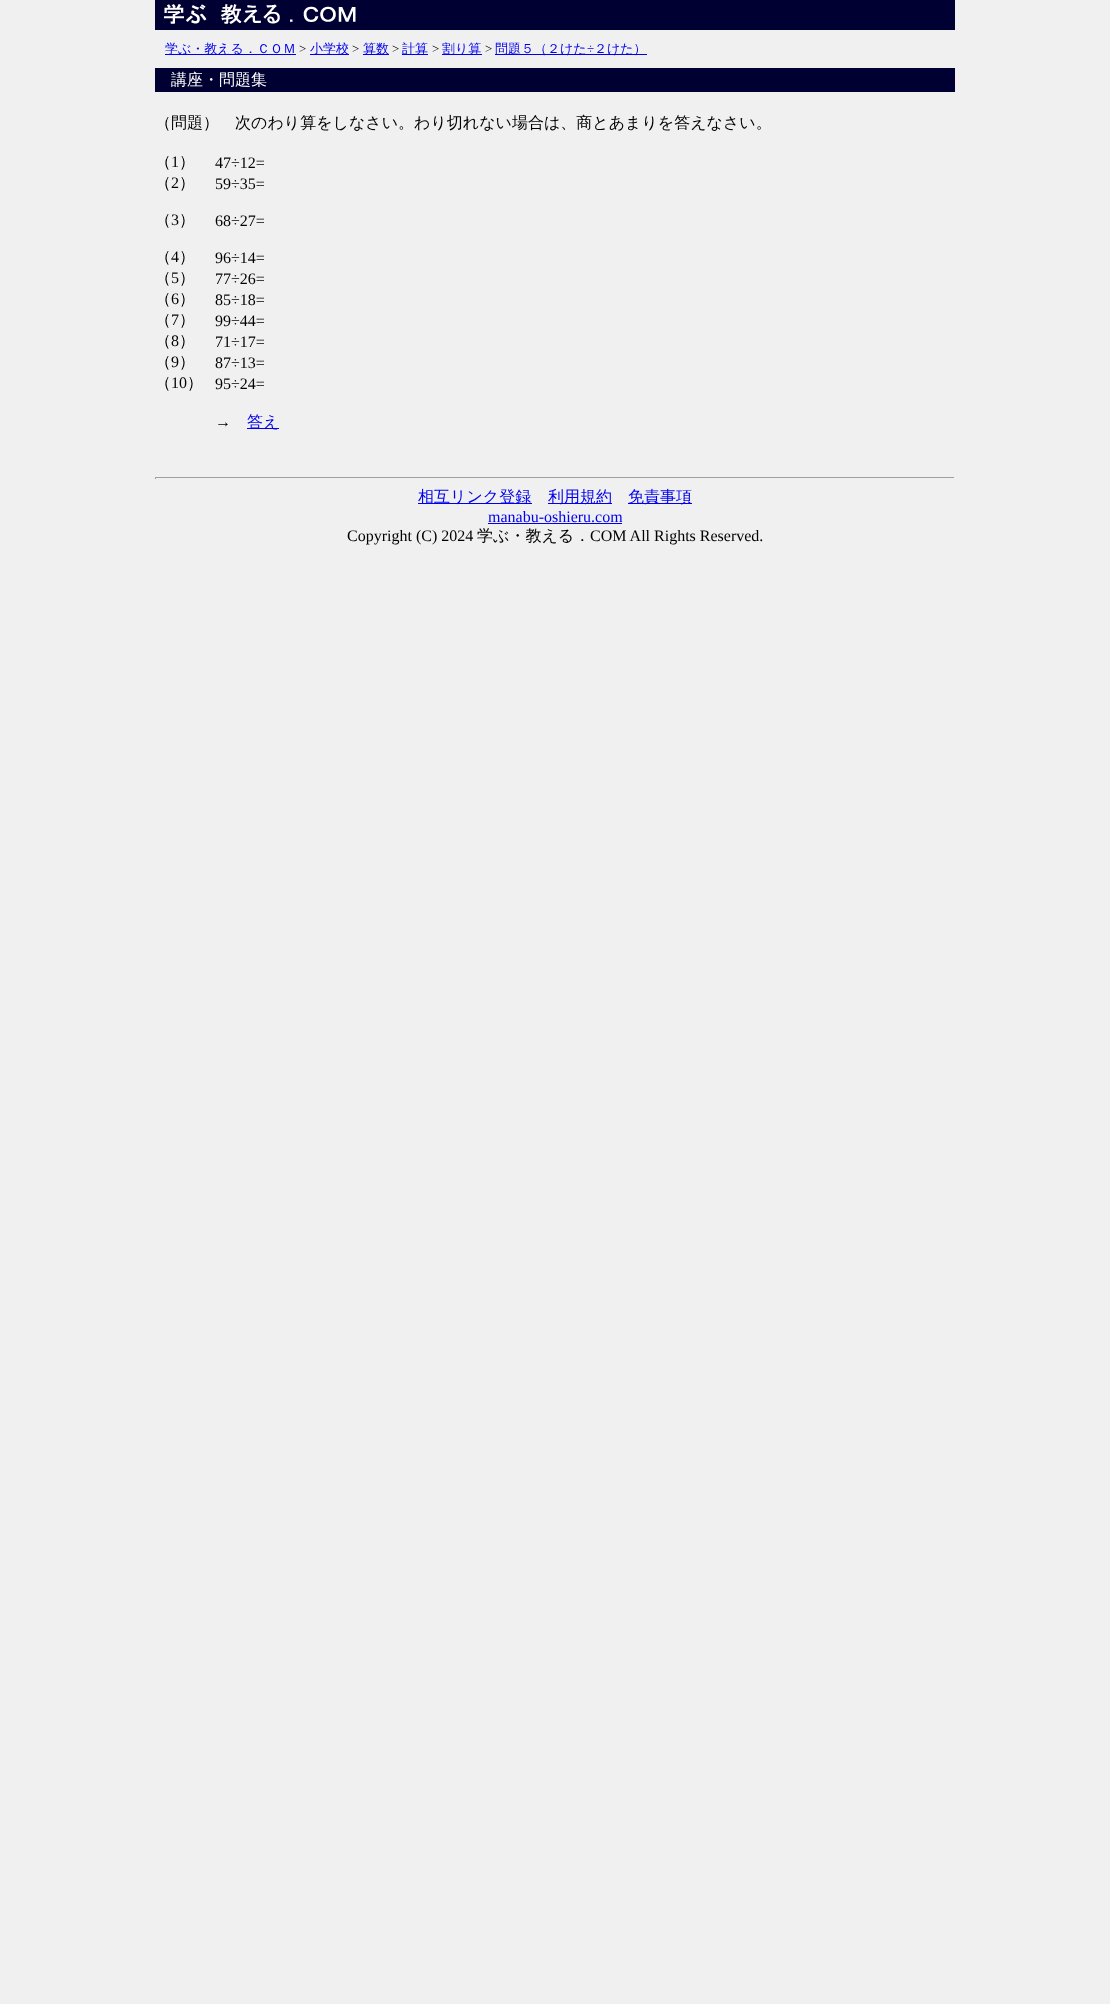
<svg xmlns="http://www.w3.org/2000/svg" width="1110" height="2004">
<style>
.a{font:500 13px WenQuanYi Zen Hei;fill:#00e}
.b{font:13px Liberation Serif;fill:#000}
.c{font:13px Liberation Serif;fill:#00e}
.d{font:500 16px WenQuanYi Zen Hei;fill:#fff}
.e{font:500 16px WenQuanYi Zen Hei;fill:#000}
.f{font:16px Liberation Serif;fill:#000}
.g{font:500 16px WenQuanYi Zen Hei;fill:#00e}
.h{font:16px Liberation Serif;fill:#00e}
</style>
<rect width="100%" height="100%" fill="#f0f0f0"/>
<path fill="#003" d="M155 0h800v30H155z"/>
<image href="1.png" x="164" y="4" width="192" height="20"/>
<path fill="#00e" d="M165 54h131v1H165z"/>
<path fill="#00e" d="M310 54h39v1H310z"/>
<path fill="#00e" d="M363 54h26v1H363z"/>
<path fill="#00e" d="M402 54h26v1H402z"/>
<path fill="#00e" d="M442 54h40v1H442z"/>
<path fill="#00e" d="M495 54h152v1H495z"/>
<path fill="#003" d="M155 68h800v24H155z"/>
<path fill="#00e" d="M247 428h32v1H247z"/>
<path fill="#9f9f9f" d="M155 477h800v1H155z"/>
<path fill="#eee" d="M954 477h1v2H954z"/>
<path fill="#9f9f9f" d="M155 477h1v2H155z"/>
<path fill="#00e" d="M418 503h114v1H418z"/>
<path fill="#00e" d="M548 503h64v1H548z"/>
<path fill="#00e" d="M628 503h64v1H628z"/>
<path fill="#00e" d="M488 523h134v1H488z"/>
<text class="a" x="165" y="53">学ぶ・教える．ＣＯＭ</text>
<text class="b" x="299" y="53">&gt;</text>
<text class="a" x="310" y="53">小学校</text>
<text class="b" x="352" y="53">&gt;</text>
<text class="a" x="363" y="53">算数</text>
<text class="b" x="392" y="53">&gt;</text>
<text class="a" x="402" y="53">計算</text>
<text class="b" x="432" y="53">&gt;</text>
<text class="a" x="442" y="53">割り算</text>
<text class="b" x="485" y="53">&gt;</text>
<text class="a" x="495" y="53">問題５（２けた</text>
<text class="c" x="587" y="53">÷</text>
<text class="a" x="594" y="53">２けた）</text>
<text class="d" x="171" y="85">講座・問題集</text>
<text class="e" x="155" y="128">（問題）　次のわり算をしなさい。わり切れない場合は、商とあまりを答えなさい。</text>
<text class="e" x="155" y="167">（</text>
<text class="f" x="171" y="167">1</text>
<text class="e" x="179" y="167">）</text>
<text class="f" x="215" y="168">47÷12=</text>
<text class="e" x="155" y="188">（</text>
<text class="f" x="171" y="188">2</text>
<text class="e" x="179" y="188">）</text>
<text class="f" x="215" y="189">59÷35=</text>
<text class="e" x="155" y="225">（</text>
<text class="f" x="171" y="225">3</text>
<text class="e" x="179" y="225">）</text>
<text class="f" x="215" y="226">68÷27=</text>
<text class="e" x="155" y="262">（</text>
<text class="f" x="171" y="262">4</text>
<text class="e" x="179" y="262">）</text>
<text class="f" x="215" y="263">96÷14=</text>
<text class="e" x="155" y="283">（</text>
<text class="f" x="171" y="283">5</text>
<text class="e" x="179" y="283">）</text>
<text class="f" x="215" y="284">77÷26=</text>
<text class="e" x="155" y="304">（</text>
<text class="f" x="171" y="304">6</text>
<text class="e" x="179" y="304">）</text>
<text class="f" x="215" y="305">85÷18=</text>
<text class="e" x="155" y="325">（</text>
<text class="f" x="171" y="325">7</text>
<text class="e" x="179" y="325">）</text>
<text class="f" x="215" y="326">99÷44=</text>
<text class="e" x="155" y="346">（</text>
<text class="f" x="171" y="346">8</text>
<text class="e" x="179" y="346">）</text>
<text class="f" x="215" y="347">71÷17=</text>
<text class="e" x="155" y="367">（</text>
<text class="f" x="171" y="367">9</text>
<text class="e" x="179" y="367">）</text>
<text class="f" x="215" y="368">87÷13=</text>
<text class="e" x="155" y="388">（</text>
<text class="f" x="171" y="388">10</text>
<text class="e" x="187" y="388">）</text>
<text class="f" x="215" y="389">95÷24=</text>
<text class="f" x="215" y="427">→</text>
<text class="g" x="247" y="427">答え</text>
<text class="g" x="418" y="502">相互リンク登録</text>
<text class="g" x="548" y="502">利用規約</text>
<text class="g" x="628" y="502">免責事項</text>
<text class="h" x="488" y="522">manabu-oshieru.com</text>
<text class="f" x="347" y="541">Copyright (C) 2024</text>
<text class="e" x="477" y="541">学ぶ・教える．</text>
<text class="f" x="590" y="541">COM All Rights Reserved.</text>
</svg>
